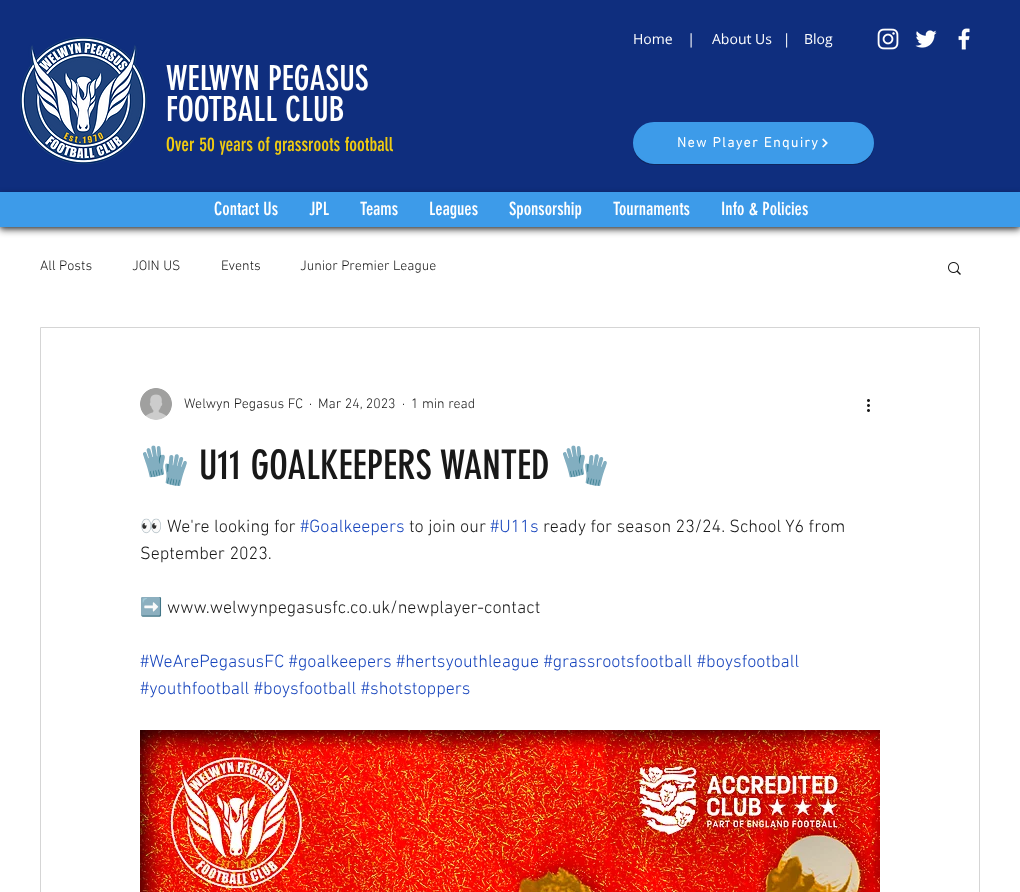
<svg xmlns="http://www.w3.org/2000/svg" width="1020" height="892">
<style>
.a{font:34px 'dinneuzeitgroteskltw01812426';fill:#fff}
.b{font:19px 'dinneuzeitgroteskltw01812426';fill:#f0cb11}
.c{font:14px Open Sans;fill:#fff}
.d{font:bold 14px 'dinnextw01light';letter-spacing:1.4px;fill:#fff}
.e{font:18px 'dinneuzeitgroteskltw01812426';fill:#fff}
.f{font:300 14px 'dinnextw01light';fill:#181818}
.g{font:40px Noto Color Emoji;fill:#181818}
.h{font:40px 'dinneuzeitgroteskltw01812426';fill:#181818}
.i{font:18px Noto Color Emoji;fill:#181818}
.j{font:300 18px 'dinnextw01light';fill:#181818}
.k{font:300 18px 'dinnextw01light';fill:#1745bd}
</style>
<rect width="100%" height="100%" fill="#fff"/>
<path fill="#00000080" filter="blur(2.5px)" d="M0 0h1020v227H0z"/>
<path fill="#0f2e7e" d="M0 0h1020v192H0z"/>
<image href="1.png" x="20" y="37" width="127" height="127"/>
<image href="2.png" x="877" y="28" width="22" height="22"/>
<image href="3.png" x="915" y="30" width="22" height="18"/>
<image href="4.png" x="958" y="28" width="12" height="22"/>
<path fill="#0f275f" d="M633 143v1c0 12 9 21 21 21h199c12 0 21-9 21-21v-1c0 12-10 21-21 21h-199c-11 0-21-9-21-21z"/>
<rect fill="#3d9be9" stroke="#3d9be9" stroke-width="2" x="634" y="123" width="239" height="40" rx="20"/>
<image href="5.png" x="822" y="138" width="6" height="10"/>
<path fill="#00000099" filter="blur(3.5px)" d="M0 195h1020v35H0z"/>
<path fill="#3d9be9" d="M0 192h1020v35H0z"/>
<image href="6.png" x="948" y="262" width="13" height="13"/>
<path fill="none" stroke="#d5d5d5" d="M40.5 327.5h939v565H40.5z"/>
<image href="7.png" x="140" y="388" width="32" height="32"/>
<image href="8.png" x="867" y="399" width="3" height="13"/>
<image href="9.png" x="140" y="730" width="740" height="162"/>
<text class="a" x="166" y="90">WELWYN PEGASUS</text>
<text class="a" x="166" y="121">FOOTBALL CLUB</text>
<text class="b" x="166" y="151">Over 50 years of grassroots football</text>
<text class="c" xml:space="preserve" x="633" y="44">Home    |</text>
<text class="c" xml:space="preserve" x="712" y="44">About Us   |</text>
<text class="c" x="804" y="44">Blog</text>
<text class="d" x="677" y="147">New Player Enquiry</text>
<text class="e" x="214" y="215">Contact Us</text>
<text class="e" x="309" y="215">JPL</text>
<text class="e" x="360" y="215">Teams</text>
<text class="e" x="429" y="215">Leagues</text>
<text class="e" x="509" y="215">Sponsorship</text>
<text class="e" x="613" y="215">Tournaments</text>
<text class="e" x="721" y="215">Info &amp; Policies</text>
<text class="f" x="40" y="270">All Posts</text>
<text class="f" x="132" y="270">JOIN US</text>
<text class="f" x="221" y="270">Events</text>
<text class="f" x="300" y="270">Junior Premier League</text>
<text class="f" x="184" y="408">Welwyn Pegasus FC</text>
<text class="f" x="309" y="408">·</text>
<text class="f" x="318" y="408">Mar 24, 2023</text>
<text class="f" x="402" y="408">·</text>
<text class="f" x="411" y="408">1 min read</text>
<text class="g" x="140" y="479">🧤</text>
<text class="h" x="199" y="479">U11 GOALKEEPERS WANTED</text>
<text class="g" x="560" y="479">🧤</text>
<text class="i" x="140" y="532">👀</text>
<text class="j" x="167" y="532">We're looking for</text>
<text class="k" x="300" y="532">#Goalkeepers</text>
<text class="j" x="409" y="532">to join our</text>
<text class="k" x="490" y="532">#U11s</text>
<text class="j" x="543" y="532">ready for season 23/24. School Y6 from</text>
<text class="j" x="140" y="559">September 2023.</text>
<text class="i" x="140" y="613">➡️</text>
<text class="j" x="167" y="613">www.welwynpegasusfc.co.uk/newplayer-contact</text>
<text class="k" x="140" y="667">#WeArePegasusFC #goalkeepers #hertsyouthleague #grassrootsfootball #boysfootball</text>
<text class="k" x="140" y="694">#youthfootball #boysfootball #shotstoppers</text>
</svg>
